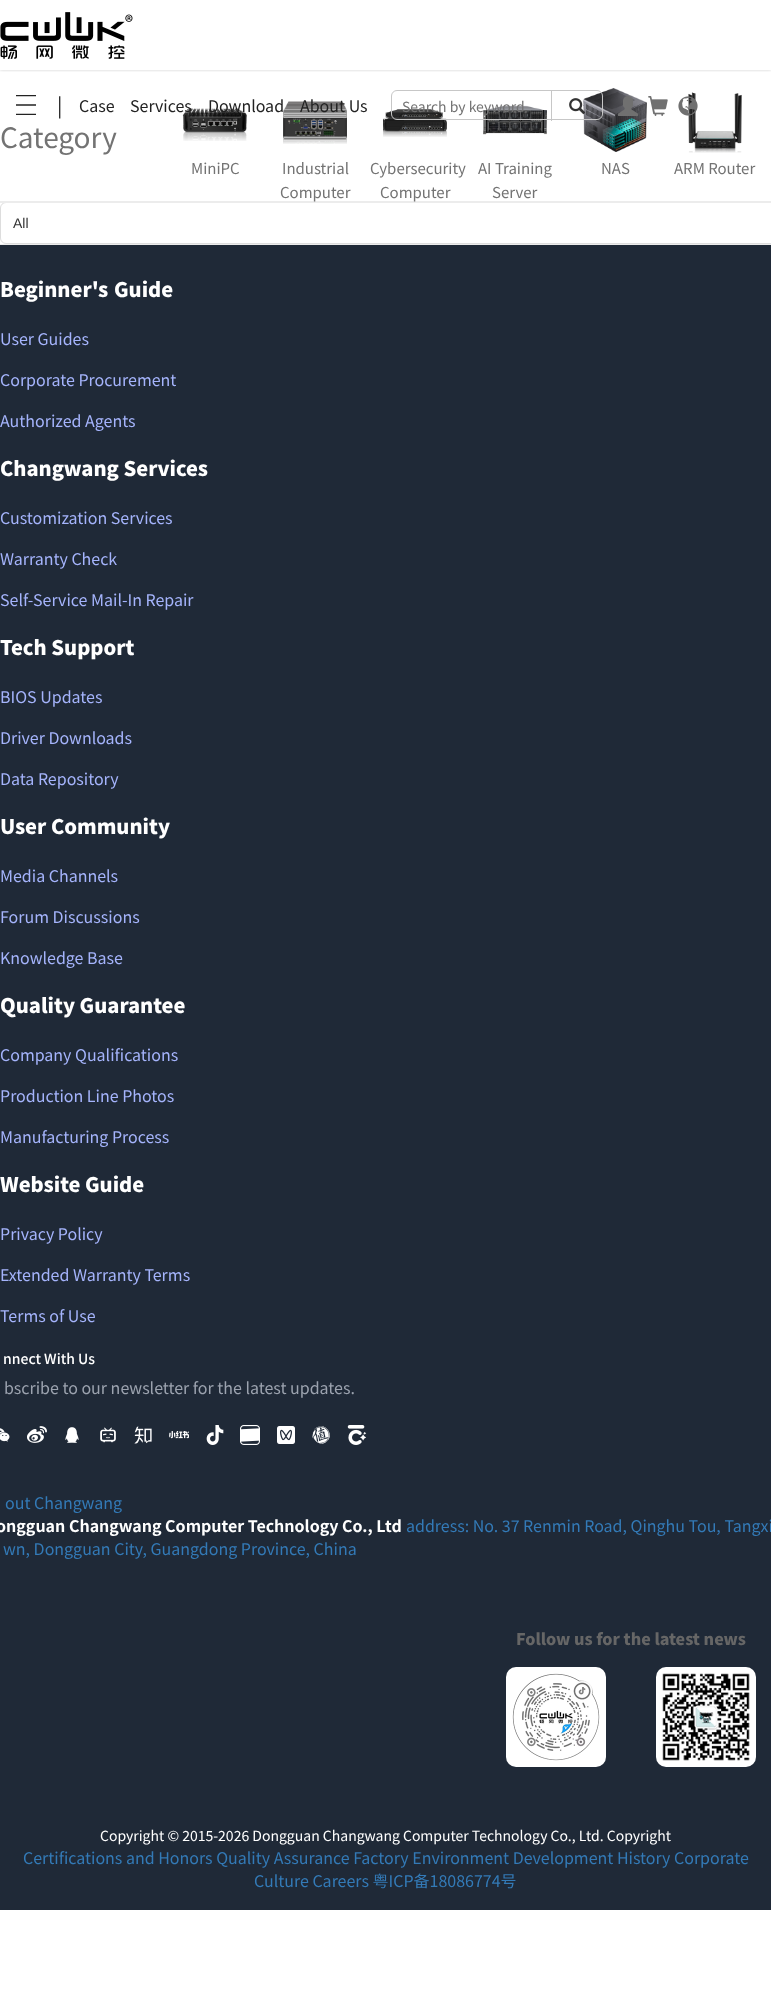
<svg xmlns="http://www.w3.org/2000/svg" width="771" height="1994">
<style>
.a{font:20px Noto Sans SC;fill:#222}
.b{font:16px Noto Sans SC;fill:#222}
.c{font:14px Noto Sans SC;fill:#737373}
.d{font:28px Noto Sans SC;fill:#737373}
.e{font:15px Noto Sans SC;fill:#737373}
.f{font:14px Liberation Sans;fill:#333}
.g{font:900 20px Noto Sans SC;fill:#fff}
.h{font:16px Noto Sans SC;fill:#a5b4fc}
.i{font:500 14px Noto Sans SC;fill:#fff}
.j{font:16px Noto Sans SC;fill:#9ca3af}
.k{font:16px Noto Sans SC;fill:#337ab7}
.l{font:bold 16px Noto Sans SC;fill:#fff}
.m{font:900 16px Noto Sans SC;fill:#666}
.n{font:14px Noto Sans SC;fill:#fff}
</style>
<defs>
<clipPath id="clip1"><path d="M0 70h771v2H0z"/></clipPath>
</defs>
<rect width="100%" height="100%" fill="#fff"/>
<g clip-path="url(#clip1)">
<path fill="#00000033" filter="blur(1.5px)" d="M0 0h771v70H0z"/>
</g>
<image href="1.png" x="0" y="12" width="133" height="47"/>
<image href="2.png" x="16" y="95" width="20" height="20"/>
<image href="9.png" x="383" y="109" width="64" height="28"/>
<image href="10.png" x="483" y="105" width="64" height="30"/>
<image href="11.png" x="583" y="88" width="64" height="64"/>
<rect fill="none" stroke="#c7c7c7" x="391.5" y="90.5" width="211" height="29" rx="5.5"/>
<path fill="#c7c7c7" d="M551 91h1v30H551z"/>
<image href="3.png" x="569" y="98" width="16" height="17"/>
<image href="4.png" x="618" y="96" width="20" height="20"/>
<image href="5.png" x="648" y="96" width="20" height="20"/>
<image href="12.png" x="688" y="92" width="54" height="61"/>
<image href="6.png" x="678" y="96" width="20" height="20"/>
<rect fill="none" stroke="#ddd" x="0.5" y="202.5" width="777" height="41" rx="5.5"/>
<path fill="#ececec" d="M0 201h771v2H0z"/>
<image href="7.png" x="182" y="108" width="65" height="33"/>
<image href="8.png" x="283" y="101" width="64" height="43"/>
<path fill="#ececec" d="M0 244h771v1H0z"/>
<path fill="#1f2937" d="M0 245h771v1665H0z"/>
<image href="13.png" x="0" y="1428" width="10" height="14"/>
<image href="14.png" x="27" y="1426" width="20" height="17"/>
<image href="15.png" x="65" y="1427" width="14" height="16"/>
<image href="16.png" x="100" y="1427" width="16" height="16"/>
<image href="17.png" x="134" y="1426" width="18" height="18"/>
<image href="18.png" x="169" y="1431" width="20" height="8"/>
<image href="19.png" x="206" y="1425" width="18" height="20"/>
<image href="20.png" x="240" y="1425" width="20" height="20"/>
<image href="21.png" x="277" y="1426" width="18" height="18"/>
<image href="22.png" x="312" y="1426" width="18" height="18"/>
<image href="23.png" x="347" y="1425" width="20" height="20"/>
<image href="24.png" x="506" y="1667" width="100" height="100"/>
<image href="25.png" x="656" y="1667" width="100" height="100"/>
<text class="a" x="57" y="113">|</text>
<text class="b" x="79" y="112">Case</text>
<text class="b" x="130" y="112">Services</text>
<text class="b" x="208" y="112">Download</text>
<text class="b" x="300" y="112">About Us</text>
<text class="c" x="402" y="112">Search by keyword</text>
<text class="d" x="0" y="148">Category</text>
<text class="e" x="191" y="174">MiniPC</text>
<text class="e" x="282" y="174">Industrial</text>
<text class="e" x="280" y="198">Computer</text>
<text class="e" x="370" y="174">Cybersecurity</text>
<text class="e" x="380" y="198">Computer</text>
<text class="e" x="478" y="174">AI Training</text>
<text class="e" x="492" y="198">Server</text>
<text class="e" x="601" y="174">NAS</text>
<text class="e" x="674" y="174">ARM Router</text>
<text class="f" x="13" y="228">All</text>
<text class="g" x="0" y="297" word-spacing="1">Beginner's Guide</text>
<text class="h" x="0" y="345">User Guides</text>
<text class="h" x="0" y="386">Corporate Procurement</text>
<text class="h" x="0" y="427">Authorized Agents</text>
<text class="g" x="0" y="476">Changwang Services</text>
<text class="h" x="0" y="524">Customization Services</text>
<text class="h" x="0" y="565">Warranty Check</text>
<text class="h" x="0" y="606">Self-Service Mail-In Repair</text>
<text class="g" x="0" y="655">Tech Support</text>
<text class="h" x="0" y="703">BIOS Updates</text>
<text class="h" x="0" y="744">Driver Downloads</text>
<text class="h" x="0" y="785">Data Repository</text>
<text class="g" x="0" y="834">User Community</text>
<text class="h" x="0" y="882">Media Channels</text>
<text class="h" x="0" y="923">Forum Discussions</text>
<text class="h" x="0" y="964">Knowledge Base</text>
<text class="g" x="0" y="1013">Quality Guarantee</text>
<text class="h" x="0" y="1061">Company Qualifications</text>
<text class="h" x="0" y="1102">Production Line Photos</text>
<text class="h" x="0" y="1143">Manufacturing Process</text>
<text class="g" x="0" y="1192">Website Guide</text>
<text class="h" x="0" y="1240">Privacy Policy</text>
<text class="h" x="0" y="1281">Extended Warranty Terms</text>
<text class="h" x="0" y="1322">Terms of Use</text>
<text class="i" x="3" y="1364">nnect With Us</text>
<text class="j" x="4" y="1394">bscribe to our newsletter for the latest updates.</text>
<text class="k" x="5" y="1509">out Changwang</text>
<text class="l" x="-4" y="1532">ongguan Changwang Computer Technology Co., Ltd</text>
<text class="k" x="406" y="1532">address: No. 37 Renmin Road, Qinghu Tou, Tangxi</text>
<text class="k" x="3" y="1555">wn, Dongguan City, Guangdong Province, China</text>
<text class="m" x="516" y="1645">Follow us for the latest news</text>
<text class="n" x="100" y="1841">Copyright © 2015-2026 Dongguan Changwang Computer Technology Co., Ltd. Copyright</text>
<text class="k" x="23" y="1864">Certifications and Honors Quality Assurance Factory Environment Development History Corporate</text>
<text class="k" x="254" y="1887">Culture Careers 粤ICP备18086774号</text>
</svg>
